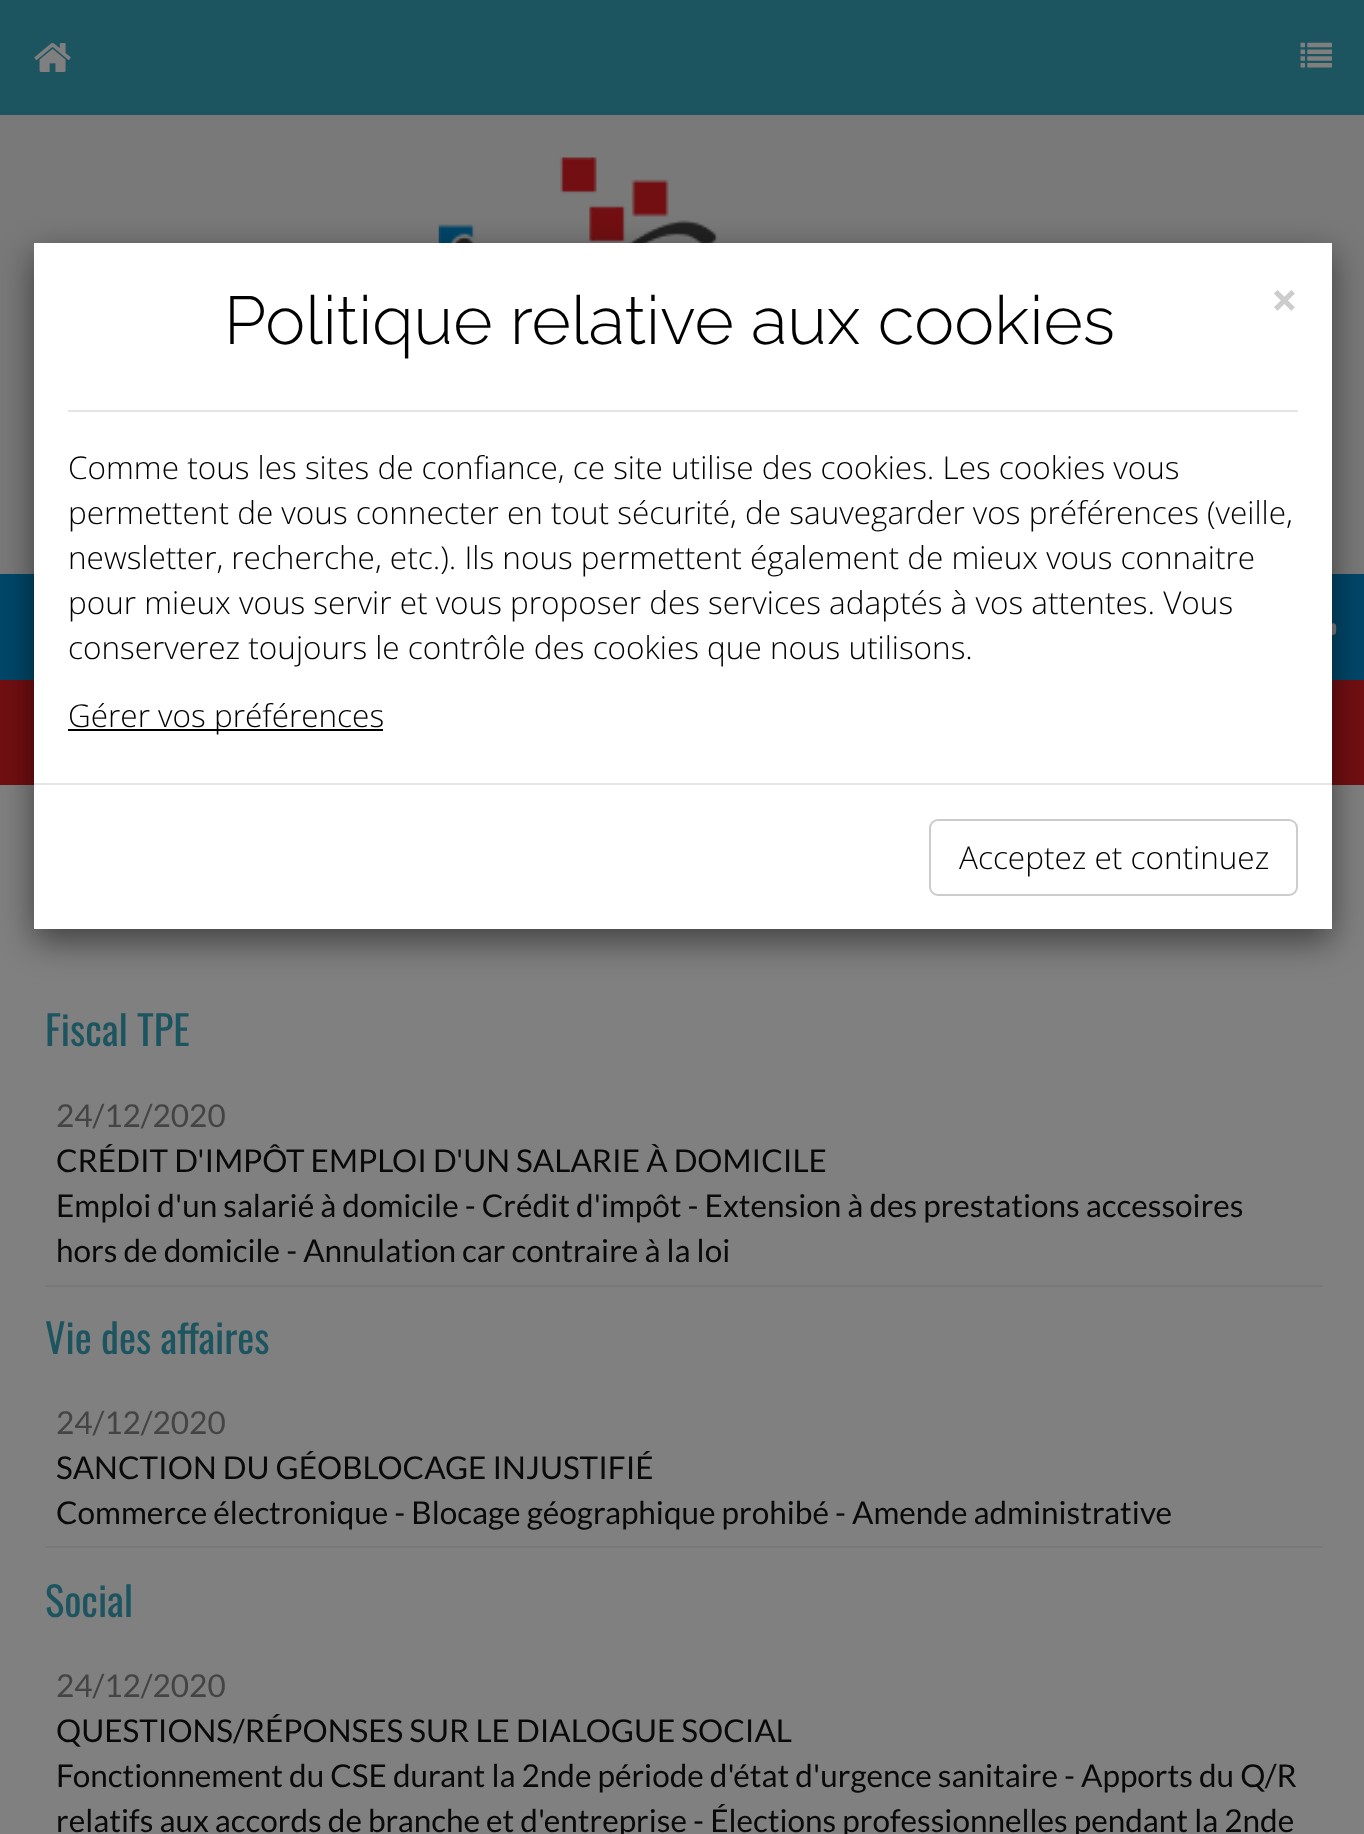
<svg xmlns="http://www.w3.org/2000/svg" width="1364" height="1834">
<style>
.a{font:100 67.5px Raleway;fill:#000}
.b{font:bold 47px Open Sans;fill:#ccc}
.c{font:300 31.5px Open Sans;fill:#000}
.d{font:40.5px Oswald;fill:#1c5460}
.e{font:31.5px Lato;fill:#444}
.f{font:31.5px Lato;fill:#090909}
</style>
<rect width="100%" height="100%" fill="#797979"/>
<path fill="#1c5460" d="M0 0h1364v115H0z"/>
<image href="1.png" x="34" y="43" width="37" height="29"/>
<image href="2.png" x="1300" y="42" width="32" height="26"/>
<image href="3.png" x="438" y="157" width="280" height="86"/>
<path fill="#004769" d="M0 574h1364v106H0z"/>
<image href="4.png" x="1332" y="623" width="5" height="12"/>
<path fill="#808080" d="M0 785h1364v1049H0z"/>
<path fill="#720f12" d="M0 680h1364v105H0z"/>
<path fill="#00000080" filter="blur(17px)" d="M34 254h1298v687H34z"/>
<path fill="#fff" d="M34 243h1298v686H34z"/>
<path fill="#e5e5e5" d="M68 410h1230v2H68z"/>
<path fill="#000" d="M68 729h315v2H68z"/>
<path fill="#e5e5e5" d="M34 783h1298v2H34z"/>
<rect fill="none" stroke="#ccc" stroke-width="2" x="930" y="820" width="367" height="75" rx="8"/>
<path fill="#787878" d="M45 1285h1278v2H45z"/>
<path fill="#787878" d="M45 1546h1278v2H45z"/>
<text class="a" x="224" y="344">Politique relative aux cookies</text>
<text class="b" x="1271" y="317">×</text>
<text class="c" x="68" y="479">Comme tous les sites de confiance, ce site utilise des cookies. Les cookies vous</text>
<text class="c" x="68" y="524">permettent de vous connecter en tout sécurité, de sauvegarder vos préférences (veille,</text>
<text class="c" x="68" y="569">newsletter, recherche, etc.). Ils nous permettent également de mieux vous connaitre</text>
<text class="c" x="68" y="614">pour mieux vous servir et vous proposer des services adaptés à vos attentes. Vous</text>
<text class="c" x="68" y="659">conserverez toujours le contrôle des cookies que nous utilisons.</text>
<text class="c" x="68" y="727">Gérer vos préférences</text>
<text class="c" x="959" y="869">Acceptez et continuez</text>
<text class="d" x="45" y="1046">Fiscal TPE</text>
<text class="e" x="56" y="1127">24/12/2020</text>
<text class="f" x="56" y="1172">CRÉDIT D'IMPÔT EMPLOI D'UN SALARIE À DOMICILE</text>
<text class="f" x="56" y="1217">Emploi d'un salarié à domicile - Crédit d'impôt - Extension à des prestations accessoires</text>
<text class="f" x="56" y="1262">hors de domicile - Annulation car contraire à la loi</text>
<text class="d" x="45" y="1354">Vie des affaires</text>
<text class="e" x="56" y="1434">24/12/2020</text>
<text class="f" x="56" y="1479">SANCTION DU GÉOBLOCAGE INJUSTIFIÉ</text>
<text class="f" x="56" y="1524">Commerce électronique - Blocage géographique prohibé - Amende administrative</text>
<text class="d" x="45" y="1617">Social</text>
<text class="e" x="56" y="1697">24/12/2020</text>
<text class="f" x="56" y="1742">QUESTIONS/RÉPONSES SUR LE DIALOGUE SOCIAL</text>
<text class="f" x="56" y="1787">Fonctionnement du CSE durant la 2nde période d'état d'urgence sanitaire - Apports du Q/R</text>
<text class="f" x="56" y="1832">relatifs aux accords de branche et d'entreprise - Élections professionnelles pendant la 2nde</text>
</svg>
